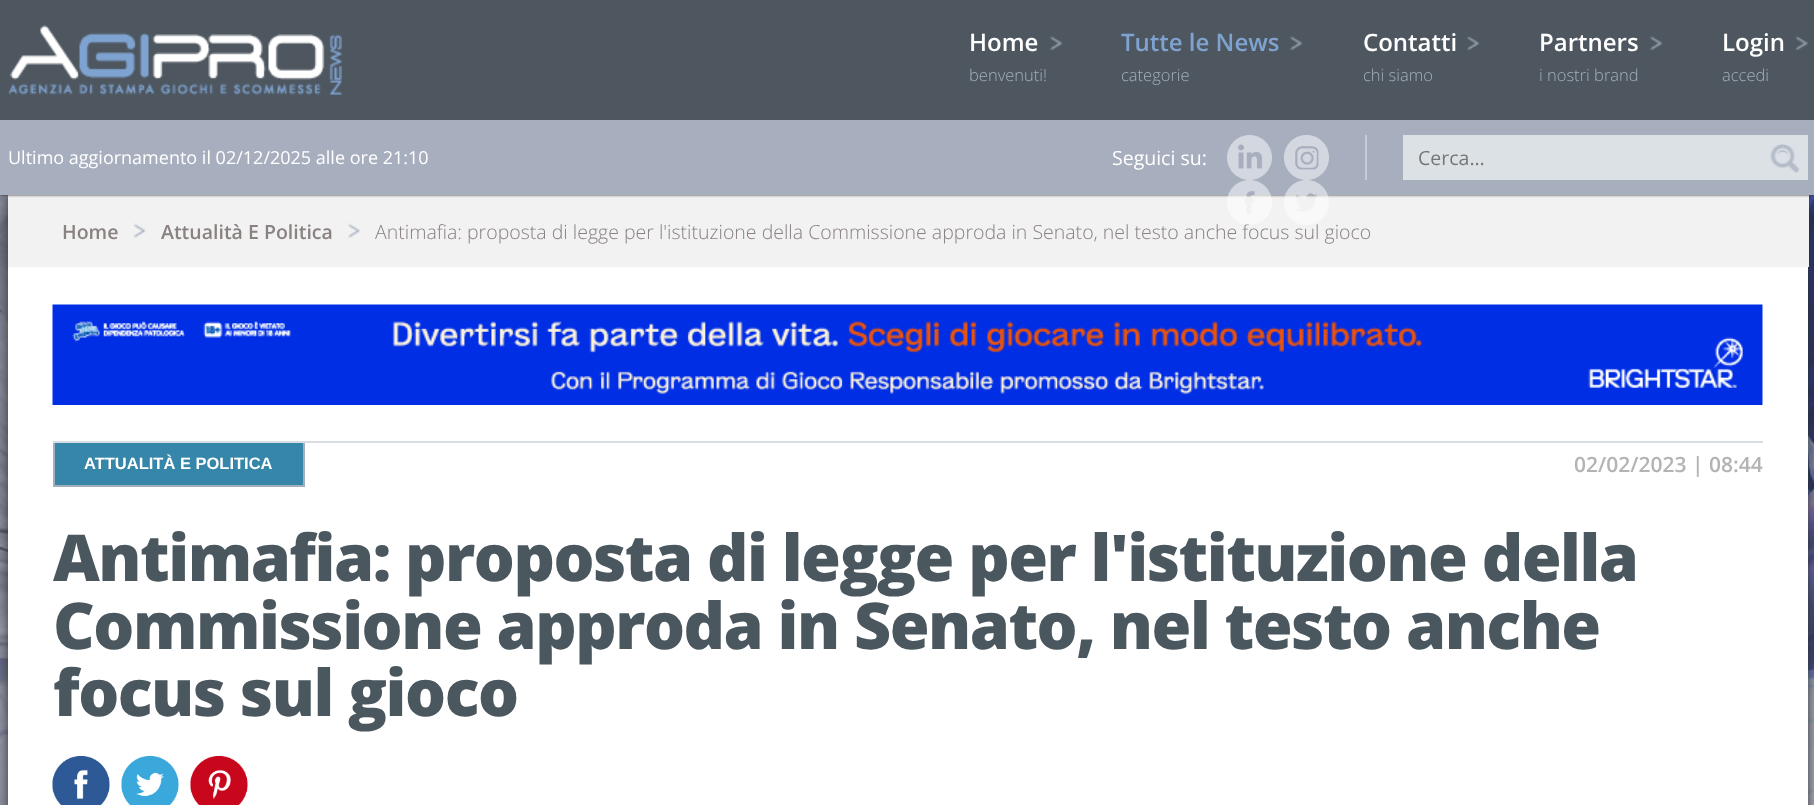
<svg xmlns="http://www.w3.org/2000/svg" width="1814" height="805">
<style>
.a{font:600 24px Open Sans;fill:#fff}
.b{font:300 16.5px Open Sans;fill:#a4afbd}
.c{font:600 24px Open Sans;fill:#7fa3d1}
.d{font:18px Open Sans;fill:#fff}
.e{font:19.5px Open Sans;fill:#fff}
.f{font:19.5px Open Sans;fill:#757575}
.g{font:600 19.5px Open Sans;fill:#8a8181}
.h{font:300 19.5px Open Sans;fill:#8a8181}
.i{font:bold 16.5px Liberation Sans;fill:#fff}
.j{font:600 21px Open Sans;fill:#b2b3b3}
.k{font:800 64.5px Open Sans;letter-spacing:-1.5px;fill:#4b575f}
</style>
<rect width="100%" height="100%" fill="#fff"/>
<image href="9.png" x="0" y="195" width="1814" height="610"/>
<path fill="#333" filter="blur(6px)" d="M8 195h1800v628H8z"/>
<path fill="#f2f2f2" d="M8 195h1801v72H8z"/>
<path fill="#333" filter="blur(1.5px)" d="M0 120h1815v75H0z"/>
<path fill="#4e5760" d="M0 0h1814v120H0z"/>
<image href="1.png" x="8" y="25" width="334" height="70"/>
<image href="2.png" x="1049" y="36" width="14" height="15"/>
<image href="2.png" x="1289" y="36" width="14" height="15"/>
<image href="2.png" x="1466" y="36" width="14" height="15"/>
<image href="2.png" x="1649" y="36" width="14" height="15"/>
<image href="3.png" x="1795" y="36" width="13" height="15"/>
<path fill="#a7aebe" d="M0 120h1814v75H0z"/>
<path fill="#c5ccd5" d="M1365 135h2v45H1365z"/>
<image href="4.png" x="1227" y="135" width="45" height="45"/>
<image href="5.png" x="1284" y="135" width="45" height="45"/>
<path fill="#dce1e6" d="M1403 135h405v45H1403z"/>
<image href="8.png" x="1770" y="144" width="30" height="29"/>
<path fill="#fff" d="M8 267h1800v538H8z"/>
<image href="10.png" x="133" y="223" width="13" height="15"/>
<image href="11.png" x="348" y="223" width="12" height="15"/>
<image href="12.png" x="52" y="304" width="1711" height="101"/>
<path fill="#d8dce3" d="M53 441h1710v2H53z"/>
<path fill="#3586a9" d="M55 443h248v42H55z"/>
<path fill="#a4afbd" d="M303 443h2v43H303z"/>
<path fill="#a4afbd" d="M53 485h252v2H53z"/>
<path fill="#a4afbd" d="M53 443h2v43H53z"/>
<image href="13.png" x="52" y="756" width="58" height="49"/>
<image href="14.png" x="121" y="756" width="58" height="49"/>
<image href="15.png" x="190" y="756" width="58" height="49"/>
<text class="a" x="969" y="51">Home</text>
<text class="b" x="969" y="81">benvenuti!</text>
<text class="c" x="1121" y="51">Tutte le News</text>
<text class="b" x="1121" y="81">categorie</text>
<text class="a" x="1363" y="51">Contatti</text>
<text class="b" x="1363" y="81">chi siamo</text>
<text class="a" x="1539" y="51">Partners</text>
<text class="b" x="1539" y="81">i nostri brand</text>
<text class="a" x="1722" y="51">Login</text>
<text class="b" x="1722" y="81">accedi</text>
<text class="d" x="8" y="164">Ultimo aggiornamento il 02/12/2025 alle ore 21:10</text>
<text class="e" x="1112" y="165">Seguici su:</text>
<text class="f" x="1418" y="165">Cerca...</text>
<text class="g" x="62" y="239">Home</text>
<text class="g" x="161" y="239">Attualità E Politica</text>
<text class="h" x="375" y="239">Antimafia: proposta di legge per l'istituzione della Commissione approda in Senato, nel testo anche focus sul gioco</text>
<image href="6.png" x="1227" y="180" width="45" height="45"/>
<image href="7.png" x="1284" y="180" width="45" height="45"/>
<text class="i" x="84" y="469">ATTUALITÀ E POLITICA</text>
<text class="j" x="1574" y="472">02/02/2023 | 08:44</text>
<text class="k" x="53" y="581">Antimafia: proposta di legge per l'istituzione della</text>
<text class="k" x="53" y="649">Commissione approda in Senato, nel testo anche</text>
<text class="k" x="53" y="716">focus sul gioco</text>
</svg>
